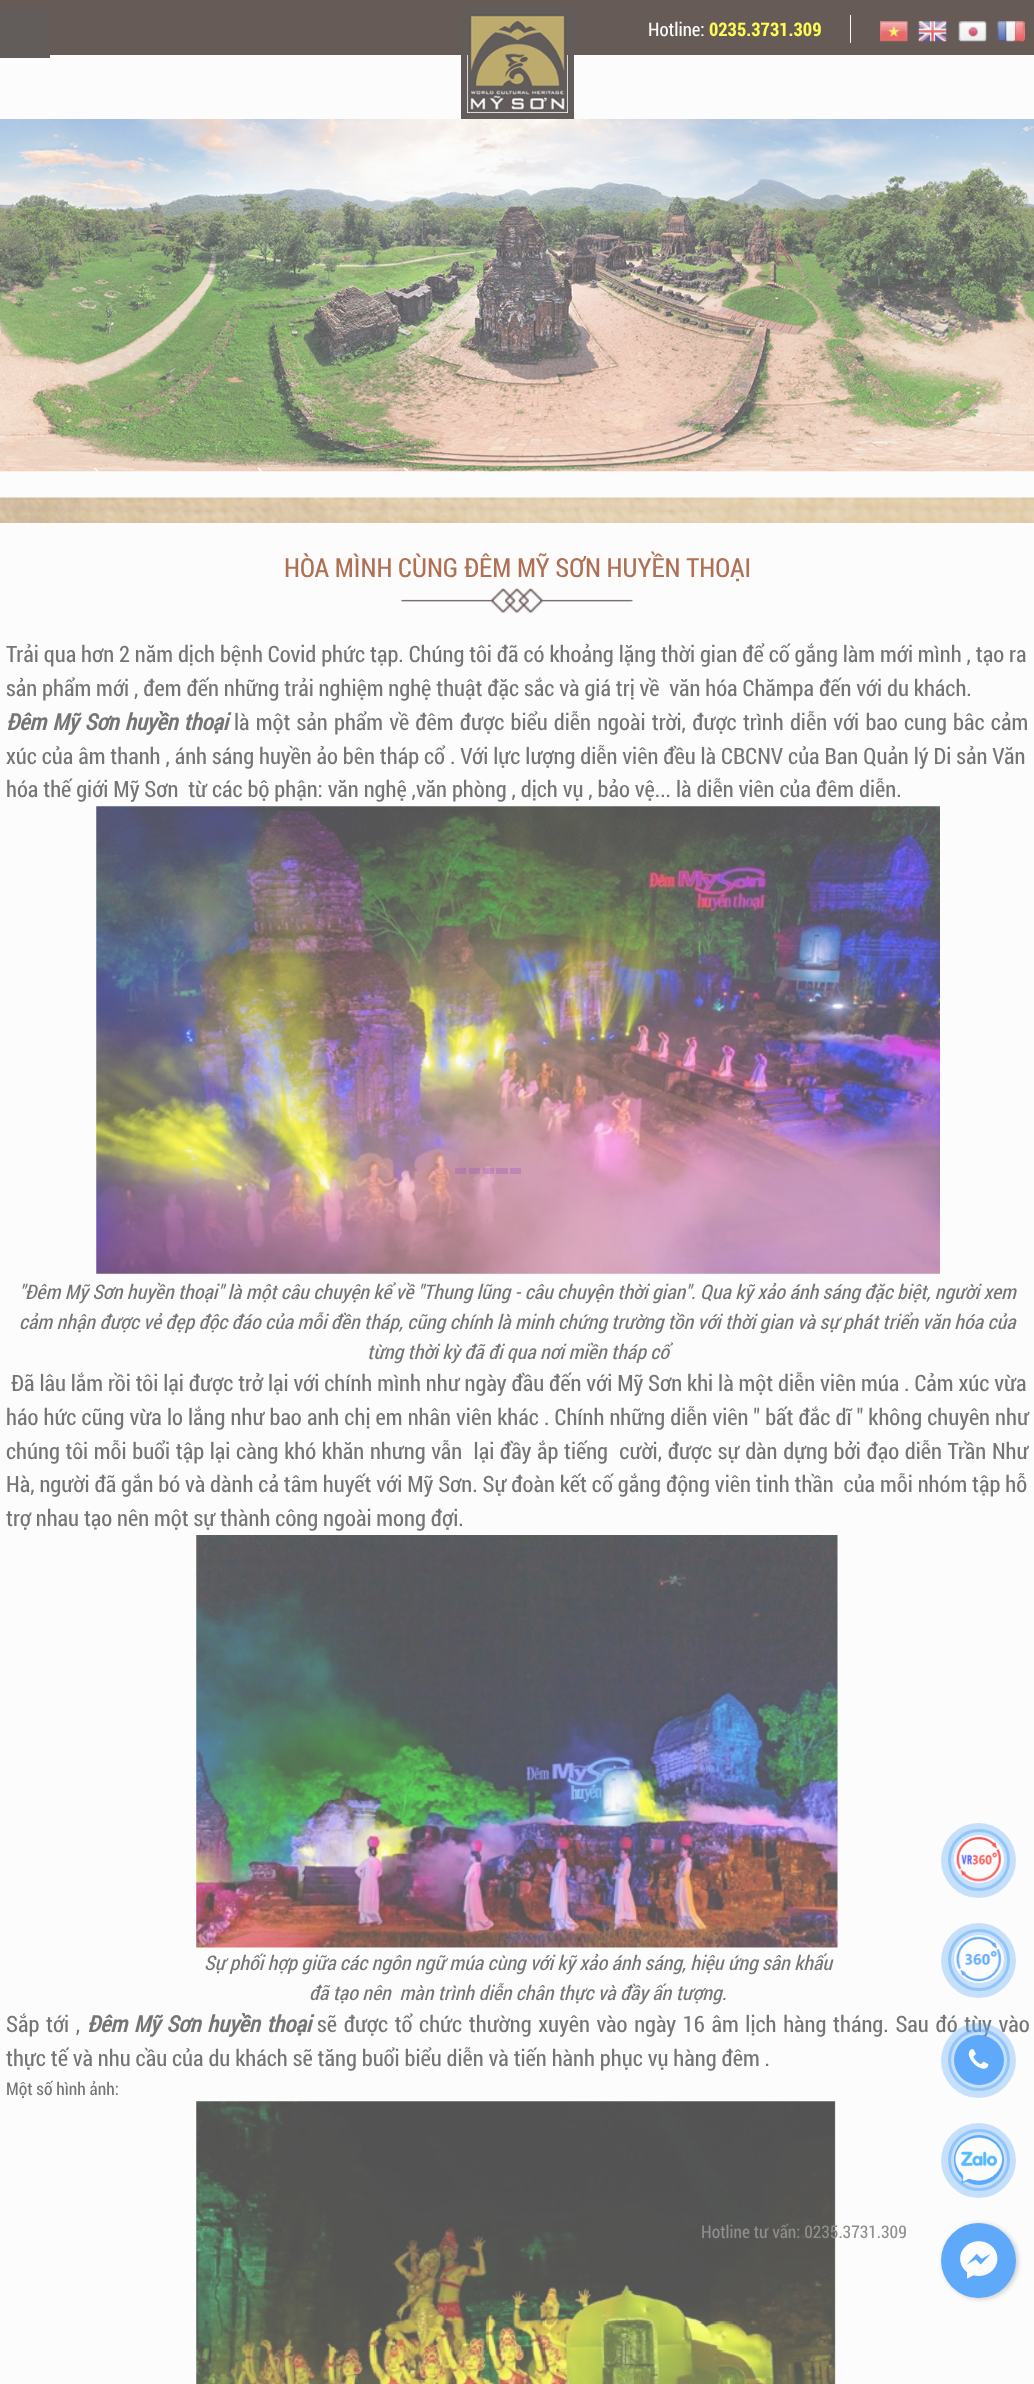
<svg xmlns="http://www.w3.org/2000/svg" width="1034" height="2384">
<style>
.a{font:18.75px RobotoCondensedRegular;fill:#fcfcfc}
.b{font:bold 18.75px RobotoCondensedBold;fill:#fcfc53}
.c{font:26.25px RobotoCondensedRegular;fill:#b07054}
.d{font:22.5px RobotoCondensedRegular;fill:#757575}
.e{font:italic bold 22.5px RobotoCondensedRegular;fill:#757575}
.f{font:italic 20px RobotoCondensedRegular;fill:#757575}
.g{font:17.5px RobotoCondensedRegular;fill:#757575}
.h{font:17.5px RobotoCondensedRegular;fill:#8f8f8d}
</style>
<rect width="100%" height="100%" fill="#fcfcfc"/>
<path fill="#665b57" d="M0 0h1034v55H0z"/>
<path fill="#625c5b" d="M0 8h50v50H0z"/>
<path fill="none" stroke="#625c5b" stroke-width="6" d="M464 9h107v107H464z"/>
<image href="1.png" x="467" y="13" width="101" height="100"/>
<path fill="#fcfcfc" d="M850 15h1v28H850z"/>
<image href="2.png" x="880" y="21" width="28" height="21"/>
<image href="3.png" x="918" y="21" width="29" height="21"/>
<image href="4.png" x="958" y="21" width="29" height="21"/>
<image href="5.png" x="997" y="21" width="28" height="21"/>
<image href="6.png" x="0" y="119" width="1034" height="353"/>
<image href="7.png" x="94" y="467" width="5" height="5"/>
<image href="8.png" x="257" y="467" width="6" height="5"/>
<image href="9.png" x="404" y="467" width="5" height="5"/>
<image href="10.png" x="0" y="497" width="1034" height="26"/>
<image href="11.png" x="401" y="588" width="232" height="25"/>
<image href="12.png" x="96" y="806" width="844" height="470"/>
<image href="13.png" x="196" y="1535" width="643" height="413"/>
<image href="14.png" x="196" y="2101" width="641" height="283"/>
<path fill="#9b59b657" d="M455 1168h11v6H455z"/>
<path fill="#9b59b657" d="M469 1168h11v6H469z"/>
<path fill="#9b59b657" d="M483 1168h11v6H483z"/>
<path fill="#9b59b657" d="M496 1168h12v6H496z"/>
<path fill="#9b59b657" d="M510 1168h11v6H510z"/>
<circle fill="none" stroke="#add3fb" stroke-width="3" cx="979" cy="1860" r="29.5"/>
<circle fill="#5fa9fa57" cx="978.5" cy="1860.5" r="37.5"/>
<ellipse fill="#fcfcfc" cx="979" cy="1859" rx="25" ry="24"/>
<image href="15.png" x="956" y="1837" width="46" height="45"/>
<circle fill="none" stroke="#add3fb" stroke-width="3" cx="979" cy="1960" r="29.5"/>
<circle fill="#5fa9fa57" cx="978.5" cy="1960.5" r="37.5"/>
<ellipse fill="#fcfcfc" cx="979" cy="1959" rx="25" ry="24"/>
<image href="16.png" x="955" y="1936" width="47" height="46"/>
<circle fill="none" stroke="#add3fb" stroke-width="3" cx="979" cy="2160" r="29.5"/>
<circle fill="#5fa9fa57" cx="978.5" cy="2160.5" r="37.5"/>
<circle fill="#5fa9fa" cx="979" cy="2160" r="25"/>
<image href="18.png" x="953" y="2136" width="51" height="48"/>
<rect fill="#5353534d" filter="blur(2.5px)" x="943" y="2224" width="75" height="75" rx="37.5"/>
<circle fill="#5fa9fa" cx="978.5" cy="2260.5" r="37.5"/>
<image href="19.png" x="960" y="2241" width="38" height="38"/>
<text class="a" x="648" y="36">Hotline:</text>
<text class="b" x="709" y="36">0235.3731.309</text>
<text class="c" x="284" y="577">HÒA MÌNH CÙNG ĐÊM MỸ SƠN HUYỀN THOẠI</text>
<text class="d" x="6" y="662">Trải qua hơn 2 năm dịch bệnh Covid phức tạp. Chúng tôi đã có khoảng lặng thời gian để cố gắng làm mới mình , tạo ra</text>
<text class="d" xml:space="preserve" x="6" y="696">sản phẩm mới , đem đến những trải nghiệm nghệ thuật đặc sắc và giá trị về  văn hóa Chămpa đến với du khách.</text>
<text class="e" x="6" y="730" word-spacing="1.3">Đêm Mỹ Sơn huyền thoại</text>
<text class="d" x="234" y="730" word-spacing="1.3">là một sản phẩm về đêm được biểu diễn ngoài trời, được trình diễn với bao cung bâc cảm</text>
<text class="d" x="6" y="764">xúc của âm thanh , ánh sáng huyền ảo bên tháp cổ . Với lực lượng diễn viên đều là CBCNV của Ban Quản lý Di sản Văn</text>
<text class="d" xml:space="preserve" x="6" y="797">hóa thế giới Mỹ Sơn  từ các bộ phận: văn nghệ ,văn phòng , dịch vụ , bảo vệ... là diễn viên của đêm diễn.</text>
<text class="f" x="19" y="1299">"Đêm Mỹ Sơn huyền thoại" là một câu chuyện kể về "Thung lũng - câu chuyện thời gian". Qua kỹ xảo ánh sáng đặc biệt, người xem</text>
<text class="f" x="19" y="1329">cảm nhận được vẻ đẹp độc đáo của mỗi đền tháp, cũng chính là minh chứng trường tồn với thời gian và sự phát triển văn hóa của</text>
<text class="f" x="367" y="1359">từng thời kỳ đã đi qua nơi miền tháp cổ</text>
<text class="d" x="11" y="1391">Đã lâu lắm rồi tôi lại được trở lại với chính mình như ngày đầu đến với Mỹ Sơn khi là một diễn viên múa . Cảm xúc vừa</text>
<text class="d" x="6" y="1425" word-spacing="0.2">háo hức cũng vừa lo lắng như bao anh chị em nhân viên khác . Chính những diễn viên " bất đắc dĩ " không chuyên như</text>
<text class="d" xml:space="preserve" x="6" y="1459" word-spacing="0.75">chúng tôi mỗi buổi tập lại càng khó khăn nhưng vẫn  lại đầy ắp tiếng  cười, được sự dàn dựng bởi đạo diễn Trần Như</text>
<text class="d" xml:space="preserve" x="6" y="1492">Hà, người đã gắn bó và dành cả tâm huyết với Mỹ Sơn. Sự đoàn kết cố gắng động viên tinh thần  của mỗi nhóm tập hỗ</text>
<text class="d" x="6" y="1526">trợ nhau tạo nên một sự thành công ngoài mong đợi.</text>
<text class="f" x="204" y="1970">Sự phối hợp giữa các ngôn ngữ múa cùng với kỹ xảo ánh sáng, hiệu ứng sân khấu</text>
<text class="f" xml:space="preserve" x="309" y="2000">đã tạo nên  màn trình diễn chân thực và đầy ấn tượng.</text>
<text class="d" x="6" y="2032" word-spacing="1.75">Sắp tới ,</text>
<text class="e" x="87" y="2032" word-spacing="1.75">Đêm Mỹ Sơn huyền thoại</text>
<text class="d" x="317" y="2032" word-spacing="1.75">sẽ được tổ chức thường xuyên vào ngày 16 âm lịch hàng tháng. Sau đó tùy vào</text>
<text class="d" x="6" y="2066">thực tế và nhu cầu của du khách sẽ tăng buổi biểu diễn và tiến hành phục vụ hàng đêm .</text>
<text class="g" x="6" y="2095">Một số hình ảnh:</text>
<circle fill="none" stroke="#5fa9fa80" stroke-width="3" cx="979" cy="2060" r="29.5"/>
<circle fill="#5fa9fa57" cx="978.5" cy="2060.5" r="37.5"/>
<circle fill="#5fa9fa" cx="979" cy="2060" r="25"/>
<image href="17.png" x="968" y="2049" width="21" height="20"/>
<text class="h" x="701" y="2238">Hotline tư vấn: 0235.3731.309</text>
</svg>
